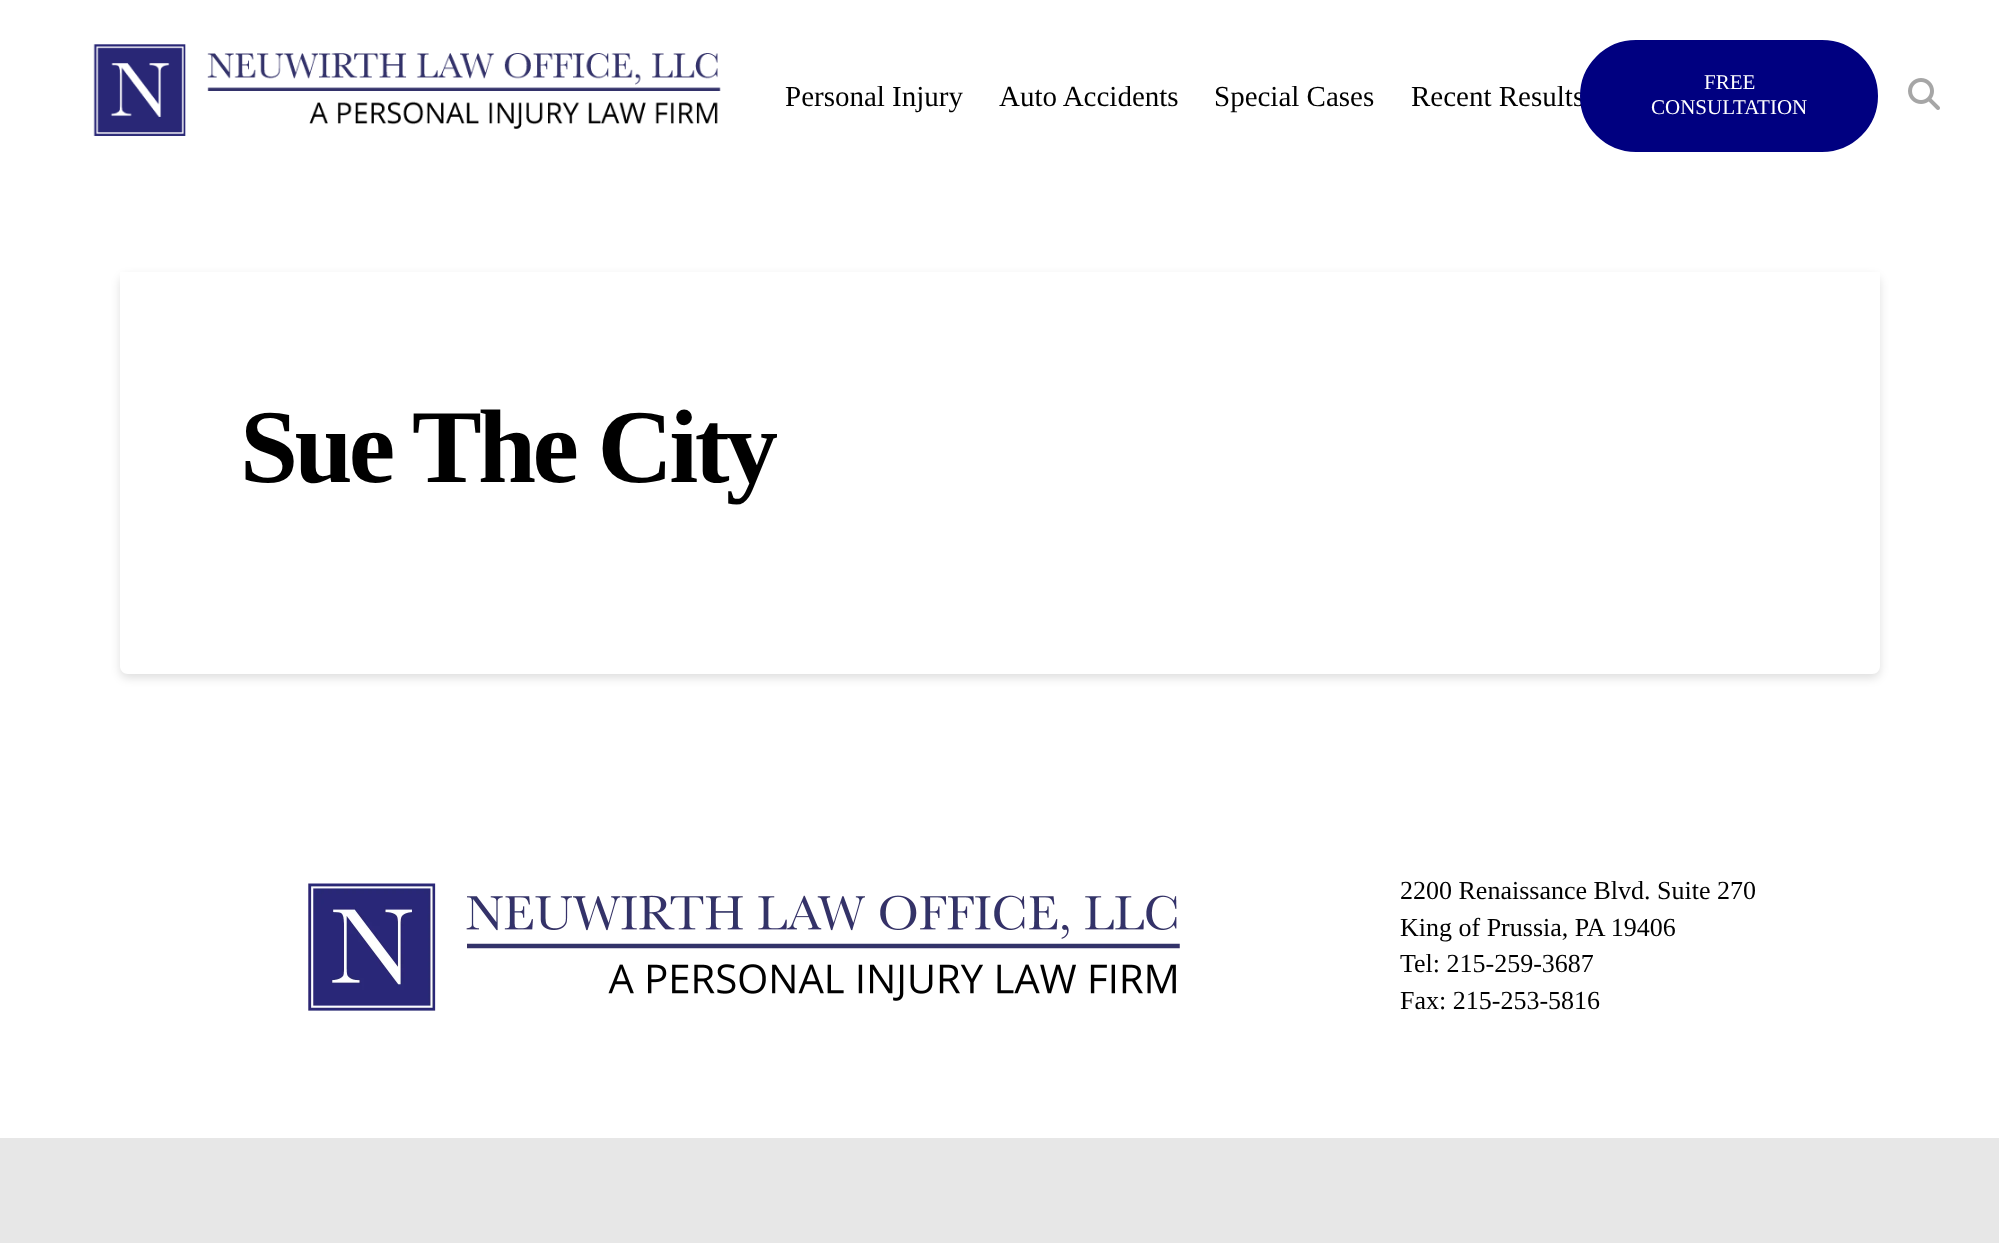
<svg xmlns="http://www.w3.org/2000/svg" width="1999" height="1243">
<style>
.a{font:29px Liberation Serif;fill:#000}
.b{font:21px Liberation Serif;fill:#fff}
.c{font:bold 104.5px Liberation Serif;letter-spacing:-3.7px;fill:#000}
.d{font:26px Liberation Serif;fill:#000}
</style>
<rect width="100%" height="100%" fill="#fff"/>
<image href="1.png" x="93" y="44" width="628" height="92"/>
<image href="2.png" x="1908" y="78" width="32" height="32"/>
<rect fill="#00000021" filter="blur(5px)" x="120" y="276" width="1760" height="402" rx="8"/>
<path fill="#fff" d="M120 272h1760v394c0 4.5-3.5 8-8 8h-1744c-4.5 0-8-3.5-8-8z"/>
<image href="3.png" x="308" y="883" width="872" height="128"/>
<path fill="#e7e7e7" d="M0 1138h1999v105H0z"/>
<text class="a" x="785" y="106">Personal Injury</text>
<text class="a" x="999" y="106">Auto Accidents</text>
<text class="a" x="1214" y="106">Special Cases</text>
<text class="a" x="1411" y="106">Recent Results</text>
<rect fill="#000080" stroke="#000080" stroke-width="4" x="1582" y="42" width="294" height="108" rx="54"/>
<text class="b" x="1704" y="89">FREE</text>
<text class="b" x="1651" y="114">CONSULTATION</text>
<text class="c" x="240" y="482">Sue The City</text>
<text class="d" x="1400" y="899">2200 Renaissance Blvd. Suite 270</text>
<text class="d" x="1400" y="936">King of Prussia, PA 19406</text>
<text class="d" x="1400" y="972">Tel: 215-259-3687</text>
<text class="d" x="1400" y="1009">Fax: 215-253-5816</text>
</svg>
